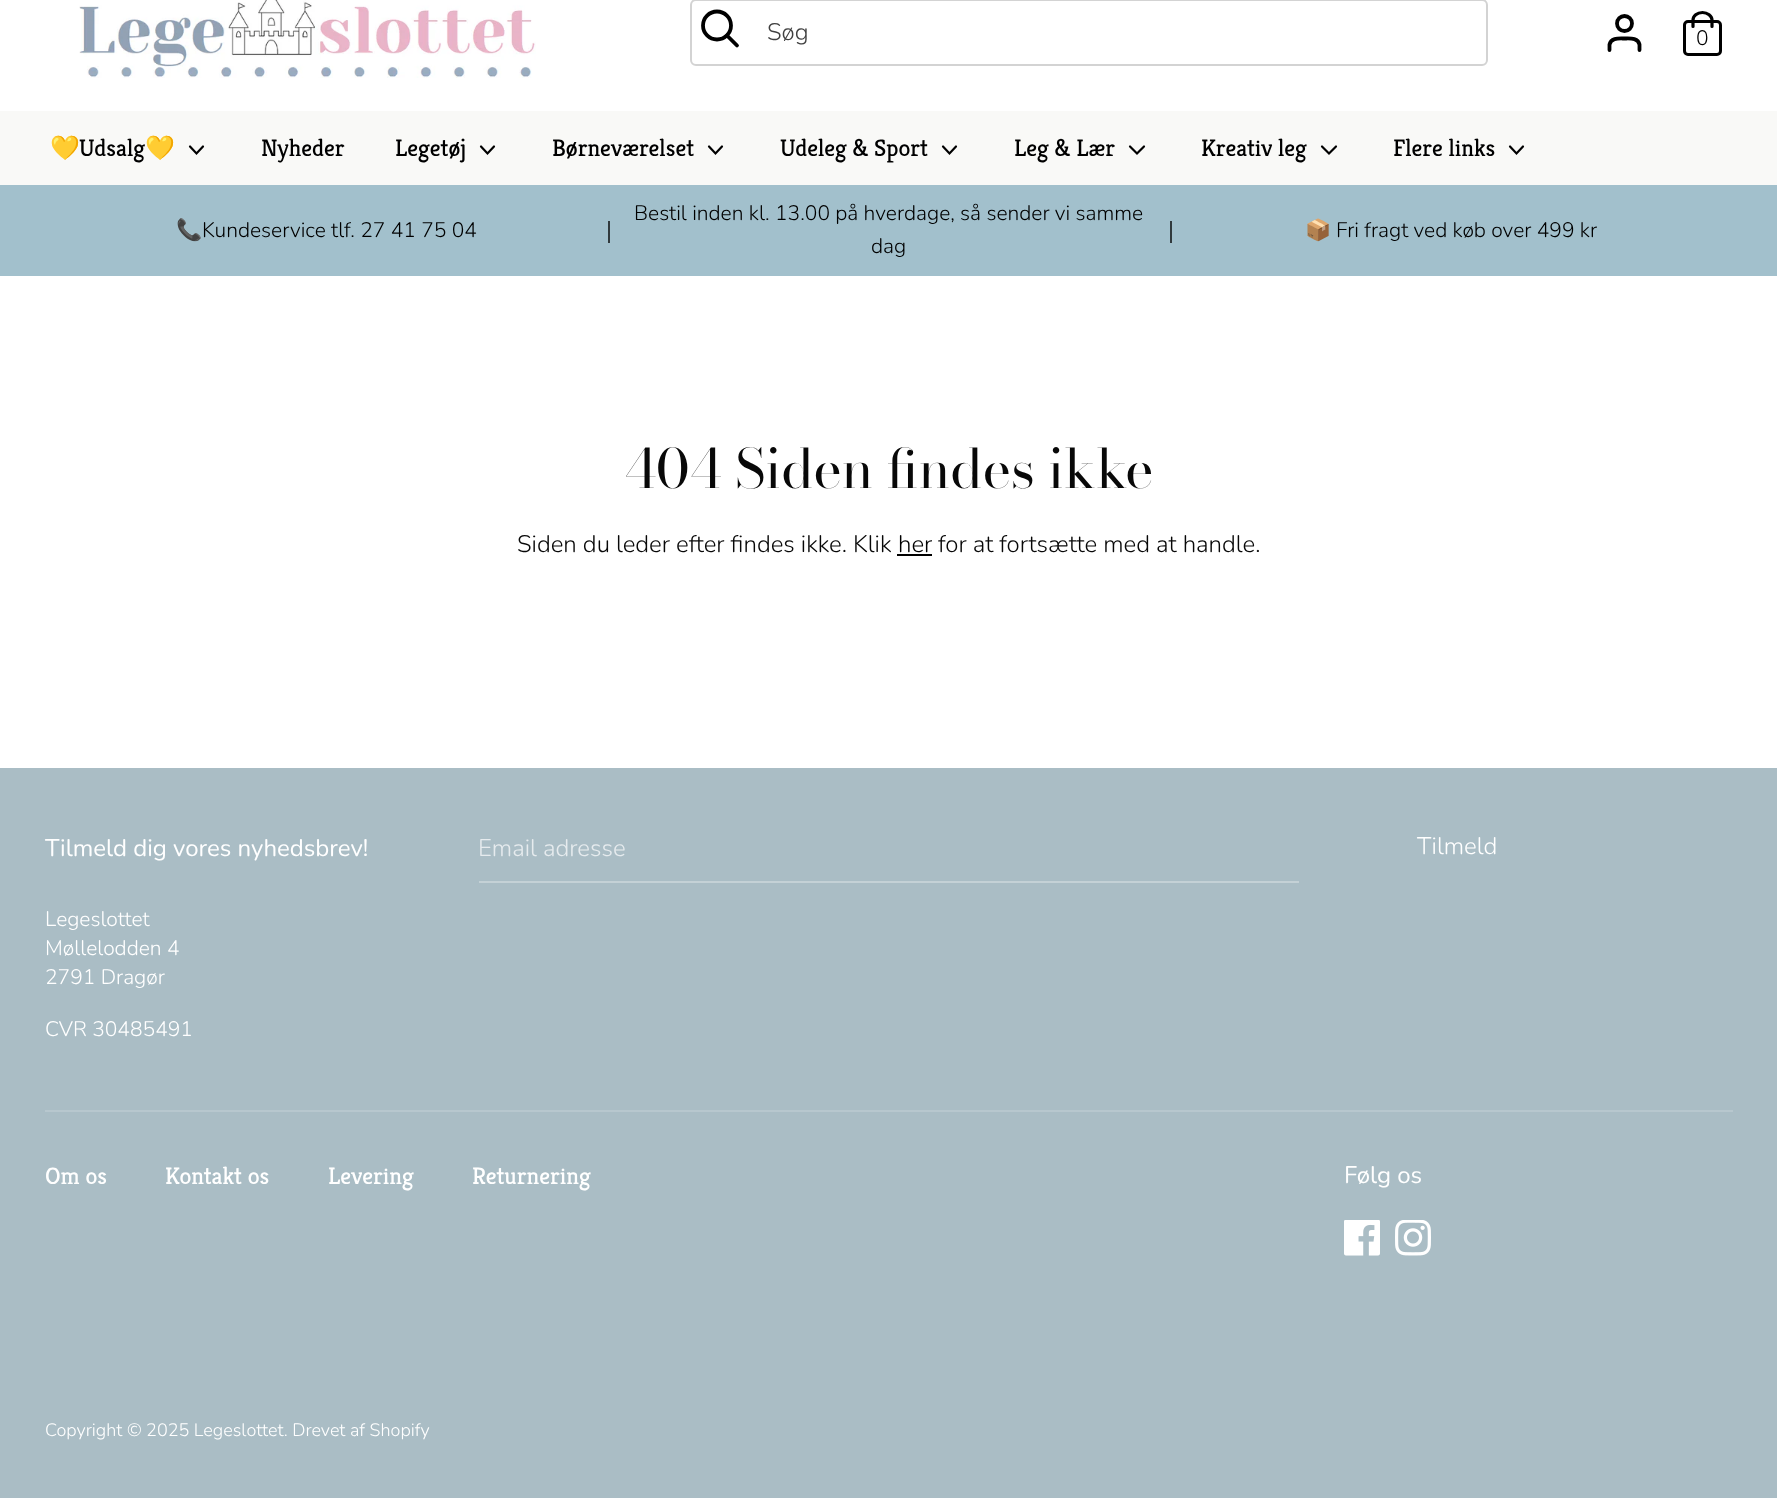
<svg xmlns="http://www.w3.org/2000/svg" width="1777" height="1498">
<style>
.a{font:300 24px Nunito;fill:#404040}
.b{font:300 21px Nunito;fill:#000}
.c{font:24px Noto Color Emoji;fill:#000}
.d{font:24px Kreon;fill:#000}
.e{font:21px Noto Color Emoji;fill:#000}
.f{font:54px Bodoni Moda;fill:#080808}
.g{font:300 24px Nunito;fill:#080808}
.h{font:300 24px Nunito;fill:#000}
.i{font:24px Nunito;fill:#fff}
.j{font:300 24px Nunito;fill:#e6ebee}
.k{font:300 24px Nunito;fill:#fff}
.l{font:300 21px Nunito;fill:#fff}
.m{font:24px Kreon;fill:#fff}
.n{font:300 18px Nunito;fill:#fff}
</style>
<rect width="100%" height="100%" fill="#fff"/>
<image href="1.png" x="79" y="0" width="457" height="78"/>
<rect fill="none" stroke="#d3d3d3" stroke-width="2" x="691" y="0" width="796" height="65" rx="5"/>
<circle fill="none" stroke="#000" stroke-width="3.8" cx="717" cy="25.5" r="14"/>
<path fill="none" stroke="#000" stroke-width="3.8" stroke-linecap="round" d="M737 45.5l-10-10"/>
<path fill="none" stroke="#000" stroke-width="3.8" stroke-linecap="round" d="M1639.5 50v-5.5c-1.5-7-9.5-6-15-6c-5.5 0-13.5-1-15 6v5.5"/>
<circle fill="none" stroke="#000" stroke-width="3.8" cx="1624.5" cy="23.5" r="7.5"/>
<rect fill="none" stroke="#000" stroke-width="3" x="1684.5" y="21.5" width="36" height="33" rx="3.5"/>
<path fill="none" stroke="#000" stroke-width="3.2" stroke-linecap="round" d="M1693 26.5v-6.5c0-4 4-7.5 9.5-7.5c5 0 9.5 3.5 9.5 7.5v6.5"/>
<path fill="#f9f9f7" d="M0 111h1777v74H0z"/>
<path fill="none" stroke="#000" stroke-width="2.2" stroke-linecap="round" d="M190 146.5l6.5 7l6.5-7"/>
<path fill="none" stroke="#000" stroke-width="2.2" stroke-linecap="round" d="M481 146.5l6.5 7l6.5-7"/>
<path fill="none" stroke="#000" stroke-width="2.2" stroke-linecap="round" d="M709 146.5l6.5 7l6.5-7"/>
<path fill="none" stroke="#000" stroke-width="2.2" stroke-linecap="round" d="M943 146.5l6.5 7l6.5-7"/>
<path fill="none" stroke="#000" stroke-width="2.2" stroke-linecap="round" d="M1130 146.5l7 7l7-7"/>
<path fill="none" stroke="#000" stroke-width="2.2" stroke-linecap="round" d="M1322 146.5l7 7l7-7"/>
<path fill="none" stroke="#000" stroke-width="2.2" stroke-linecap="round" d="M1510 146.5l6.5 7l6.5-7"/>
<path fill="#a2c0cc" d="M0 185h1777v91H0z"/>
<path fill="#313a3d" d="M608 221h2v22H608z"/>
<path fill="#313a3d" d="M1170 221h2v22H1170z"/>
<path fill="#000" d="M897 554h35v2H897z"/>
<path fill="#aabdc5" d="M0 768h1777v730H0z"/>
<path fill="#c4d1d6" d="M479 881h820v2H479z"/>
<path fill="#b7c7ce" d="M45 1110h1688v2H45z"/>
<image href="2.png" x="1344" y="1220" width="36" height="36"/>
<image href="3.png" x="1395" y="1220" width="36" height="36"/>
<text class="a" x="767" y="40">Søg</text>
<text class="b" x="1696" y="45">0</text>
<text class="c" x="50" y="156">💛</text>
<text class="d" x="79" y="156">Udsalg</text>
<text class="c" x="145" y="156">💛</text>
<text class="d" x="261" y="156">Nyheder</text>
<text class="d" x="395" y="156">Legetøj</text>
<text class="d" x="552" y="156">Børneværelset</text>
<text class="d" x="780" y="156">Udeleg &amp; Sport</text>
<text class="d" x="1014" y="156">Leg &amp; Lær</text>
<text class="d" x="1201" y="156">Kreativ leg</text>
<text class="d" x="1393" y="156">Flere links</text>
<text class="e" x="176" y="237">📞</text>
<text class="b" x="202" y="237">Kundeservice tlf. 27 41 75 04</text>
<text class="b" x="634" y="220">Bestil inden kl. 13.00 på hverdage, så sender vi samme</text>
<text class="b" x="871" y="253">dag</text>
<text class="e" x="1305" y="237">📦</text>
<text class="b" x="1336" y="237">Fri fragt ved køb over 499 kr</text>
<text class="f" x="624" y="488">404 Siden findes ikke</text>
<text class="g" x="517" y="552">Siden du leder efter findes ikke. Klik</text>
<text class="h" x="898" y="552">her</text>
<text class="g" x="938" y="552">for at fortsætte med at handle.</text>
<text class="i" x="45" y="856">Tilmeld dig vores nyhedsbrev!</text>
<text class="j" x="478" y="856">Email adresse</text>
<text class="k" x="1417" y="854">Tilmeld</text>
<text class="l" x="45" y="926">Legeslottet</text>
<text class="l" x="45" y="955">Møllelodden 4</text>
<text class="l" x="45" y="984">2791 Dragør</text>
<text class="l" x="45" y="1036">CVR 30485491</text>
<text class="m" x="45" y="1184">Om os</text>
<text class="m" x="165" y="1184">Kontakt os</text>
<text class="m" x="328" y="1184">Levering</text>
<text class="m" x="472" y="1184">Returnering</text>
<text class="i" x="1344" y="1183">Følg os</text>
<text class="n" x="45" y="1436">Copyright © 2025 Legeslottet. Drevet af Shopify</text>
</svg>
